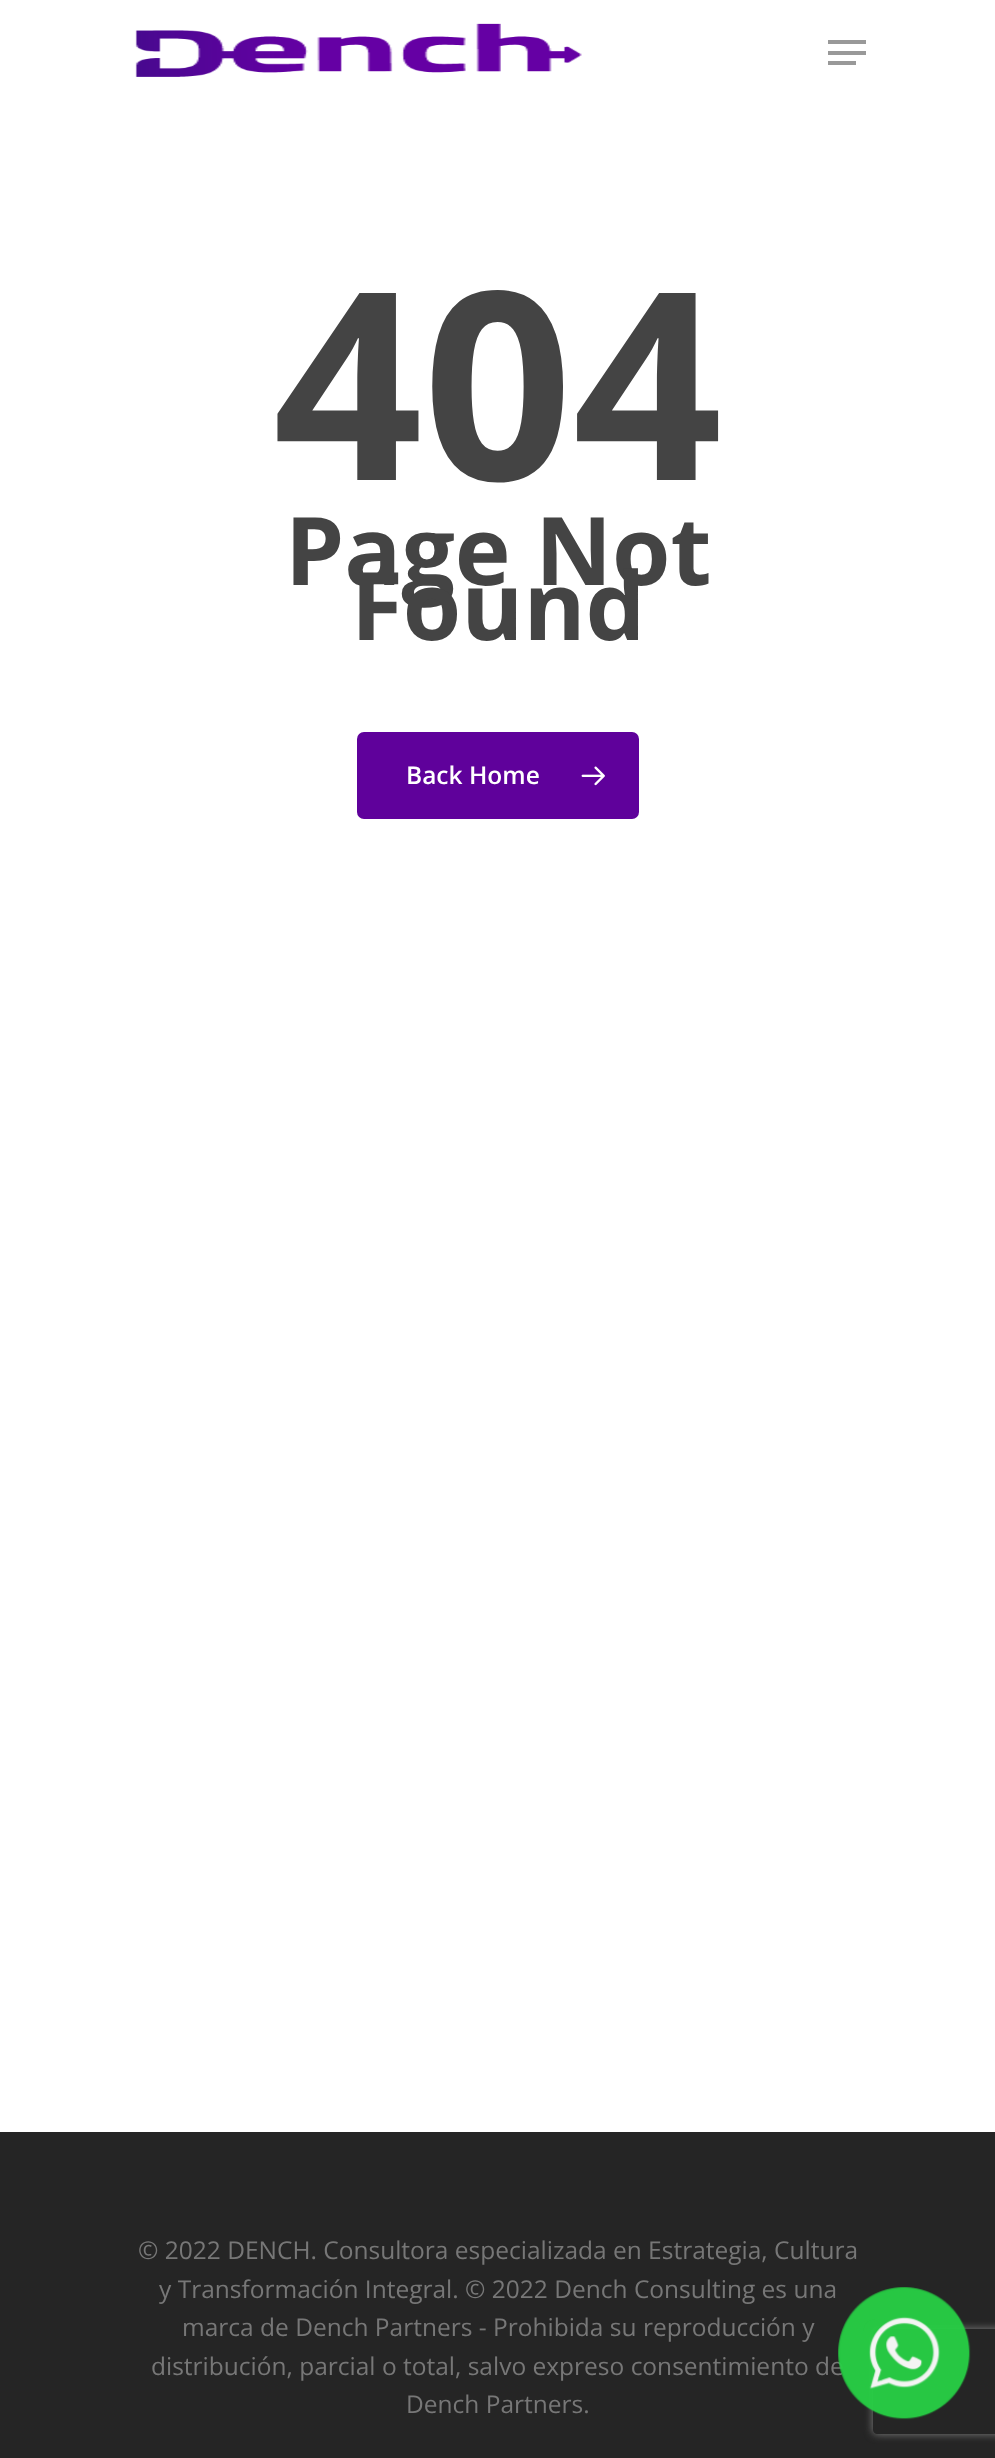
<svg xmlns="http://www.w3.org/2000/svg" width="995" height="2458">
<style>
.a{font:bold 262px Open Sans;fill:#444}
.b{font:bold 94.5px Open Sans;fill:#444}
.c{font:600 24.5px Open Sans;fill:#fff}
.d{font:24.5px Open Sans;fill:#777}
</style>
<defs>
<clipPath id="clip1"><path d="M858 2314h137v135h-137zm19 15h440c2 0 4 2 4 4v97c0 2-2 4-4 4h-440c-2 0-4-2-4-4v-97c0-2 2-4 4-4z" clip-rule="evenodd"/></clipPath>
</defs>
<rect width="100%" height="100%" fill="#fff"/>
<image href="1.png" x="135" y="23" width="447" height="54"/>
<path fill="#999" d="M828 40h38v4H828z"/>
<path fill="#999" d="M828 61h28v4H828z"/>
<path fill="#999" d="M828 51h38v4H828z"/>
<rect fill="#5f019b" x="357" y="732" width="282" height="87" rx="7"/>
<image href="2.png" x="581" y="766" width="24" height="20"/>
<path fill="#252525" d="M0 2132h995v326H0z"/>
<g clip-path="url(#clip1)">
<rect fill="#808080" filter="blur(4.5px)" x="873" y="2329" width="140" height="105" rx="4"/>
</g>
<text class="a" x="273" y="480">404</text>
<text class="b" x="285" y="585">Page Not</text>
<text class="b" x="351" y="640">Found</text>
<text class="c" x="406" y="784">Back Home</text>
<text class="d" x="138" y="2259">© 2022 DENCH. Consultora especializada en Estrategia, Cultura</text>
<text class="d" x="159" y="2298">y Transformación Integral. © 2022 Dench Consulting es una</text>
<text class="d" x="182" y="2336">marca de Dench Partners - Prohibida su reproducción y</text>
<text class="d" x="151" y="2375">distribución, parcial o total, salvo expreso consentimiento de</text>
<text class="d" x="406" y="2413">Dench Partners.</text>
<image href="3.png" x="838" y="2287" width="133" height="133"/>
</svg>
